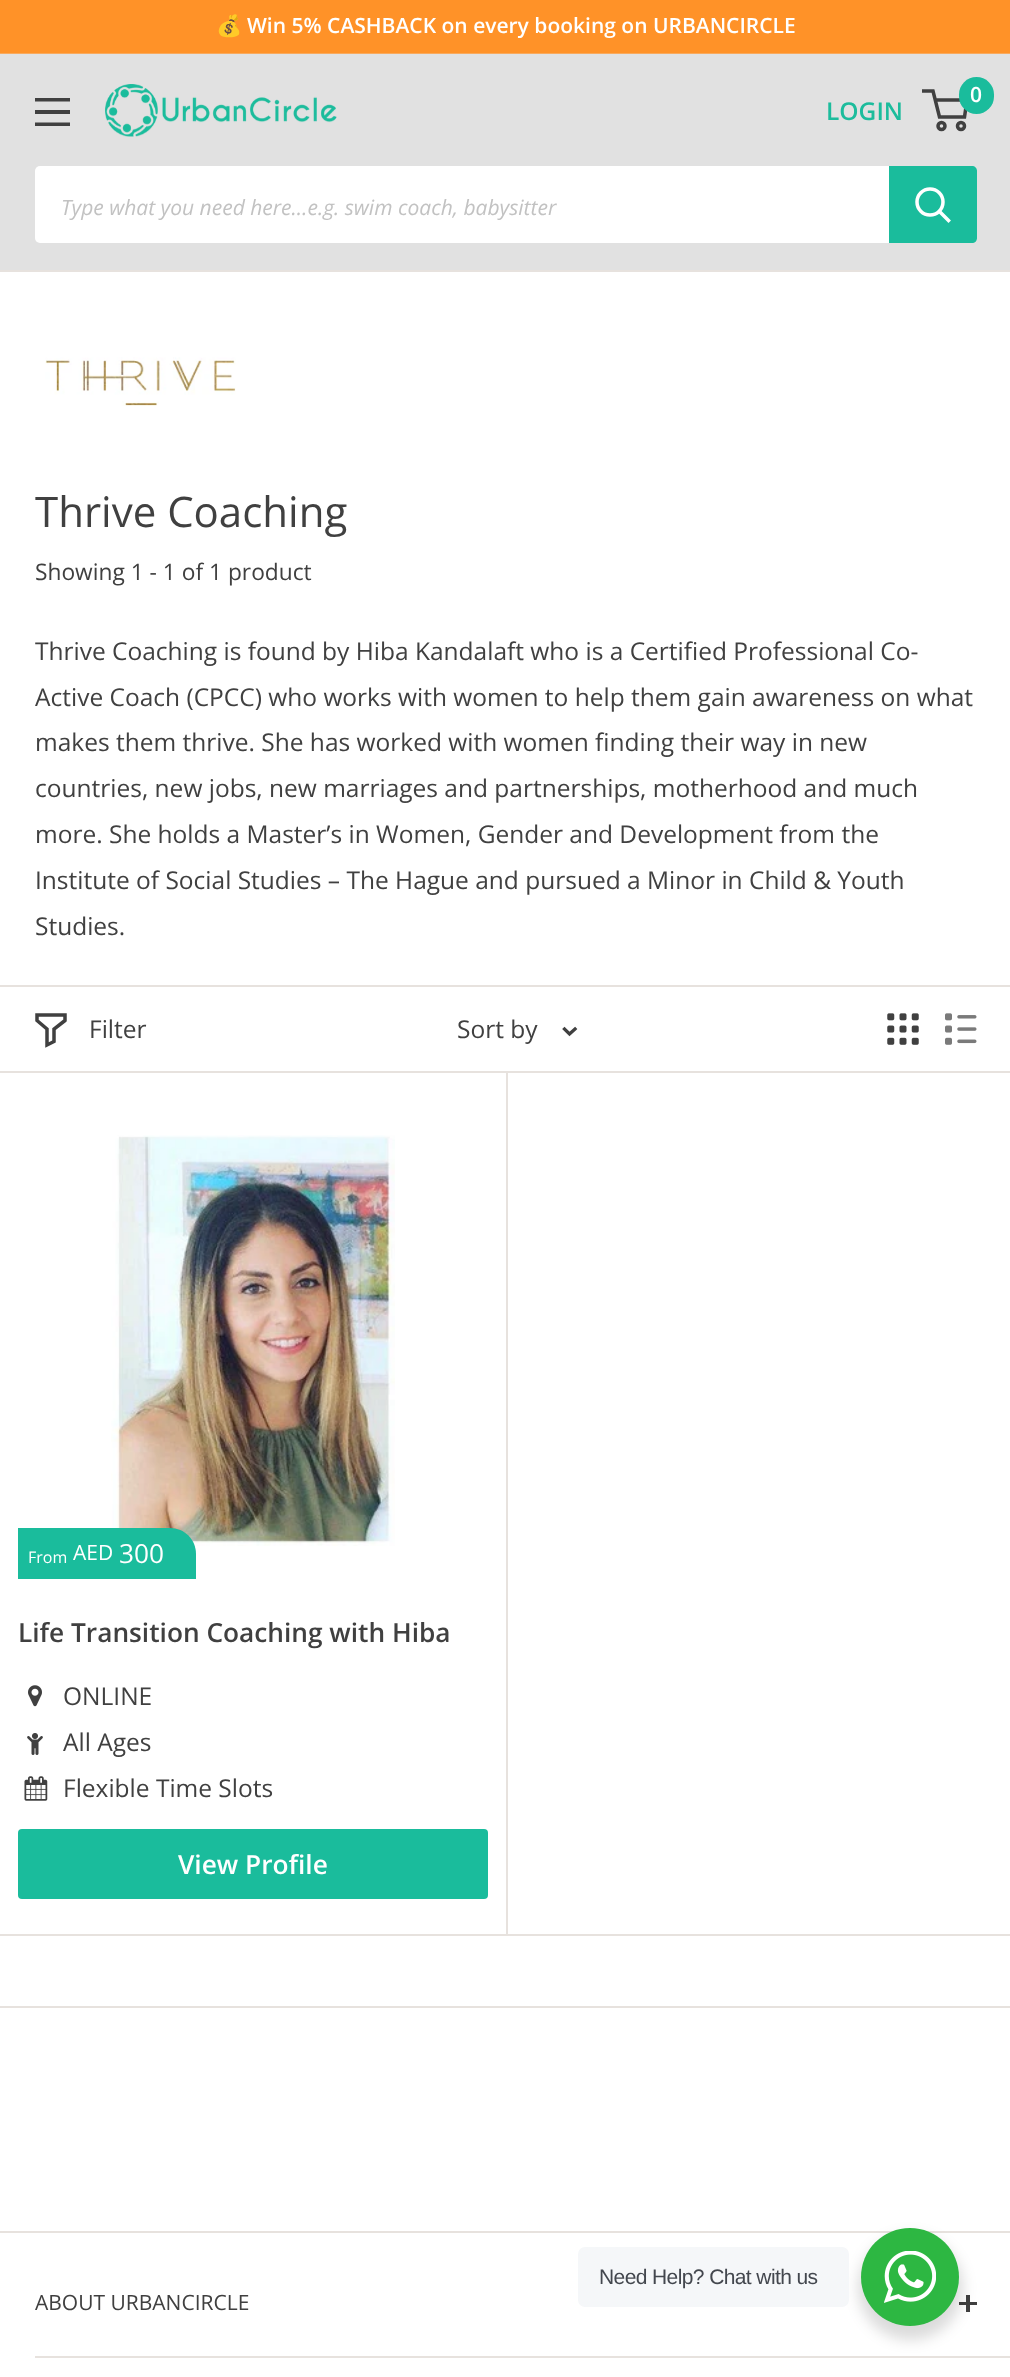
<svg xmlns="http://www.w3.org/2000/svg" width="1010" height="2377">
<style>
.a{font:bold 21px Noto Color Emoji;fill:#fff}
.b{font:600 21px Open Sans;fill:#fff}
.c{font:600 24.5px Open Sans;fill:#1cbc9c}
.d{font:italic 21px Open Sans;fill:#c2c2c2}
.e{font:42px Open Sans;fill:#404040}
.f{font:22.75px Open Sans;fill:#404040}
.g{font:24.5px Open Sans;fill:#404040}
.h{font:16px Open Sans;fill:#fff}
.i{font:21px Open Sans;fill:#fff}
.j{font:26.25px Open Sans;fill:#fff}
.k{font:600 26.25px Open Sans;fill:#404040}
.l{font:600 26.25px Open Sans;fill:#fff}
.m{font:21px Liberation Sans;letter-spacing:-0.6px;fill:#43474e}
.n{font:21px Open Sans;fill:#404040}
</style>
<rect width="100%" height="100%" fill="#fff"/>
<path fill="#ff9228" d="M0 0h1010v53H0z"/>
<path fill="#f8aa5e" d="M0 53h1010v1H0z"/>
<path fill="#e1e1e1" d="M0 54h1010v216H0z"/>
<path fill="#404040" fill-rule="evenodd" d="M35 122.5h35v3.5h-35zm0-24.5h35v3.5h-35zm0 12h35v4h-35z"/>
<image href="1.png" x="105" y="84" width="232" height="53"/>
<circle fill="none" stroke="#404040" stroke-width="3.5" cx="941.5" cy="126" r="3.5"/>
<circle fill="none" stroke="#404040" stroke-width="3.5" cx="961" cy="126" r="3.5"/>
<path fill="none" stroke="#404040" stroke-width="3.5" d="M935 100h32l-2.5 17h-25l-6.5-26h-11"/>
<rect fill="#1abc9c" x="959" y="77" width="35" height="37" rx="17.5"/>
<rect fill="#fff" x="35" y="166" width="942" height="77" rx="5"/>
<path fill="#1abc9c" d="M889 166h83c3 0 5 2 5 5v67c0 3-2 5-5 5h-83z"/>
<path fill="none" stroke="#fff" stroke-width="3.5" stroke-linecap="square" d="M948.5 220.5l-8.5-8.5"/>
<circle fill="none" stroke="#fff" stroke-width="3.5" cx="930" cy="202" r="13"/>
<path fill="#e7e2de" d="M0 270h1010v2H0z"/>
<path fill="#e7e2de" d="M0 2006h1010v2H0z"/>
<image href="2.png" x="45" y="357" width="191" height="49"/>
<path fill="#e7e2de" d="M0 985v2h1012v82v-84z"/>
<path fill="#e7e2de" d="M2 1934h506v-863h-2v863z"/>
<path fill="#e7e2de" d="M0 1071v2h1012v-84v82z"/>
<path fill="none" stroke="#404040" stroke-width="3.5" stroke-linecap="square" d="M65 1020.5l-11 8.5v12.5l-7 3.5v-16l-10-8.5v-5.5h28z"/>
<path fill="none" stroke="#404040" stroke-width="3.3" stroke-linecap="square" d="M575 1029l-5.5 5l-5-5"/>
<image href="3.png" x="887" y="1013" width="32" height="32"/>
<image href="4.png" x="945" y="1013" width="32" height="32"/>
<image href="5.png" x="111" y="1135" width="284" height="411"/>
<path fill="#1abc9c" d="M18 1528h152c14.5 0 26 11.5 26 26v25h-178z"/>
<image href="6.png" x="28" y="1685" width="14" height="22"/>
<image href="7.png" x="27" y="1733" width="16" height="22"/>
<image href="8.png" x="24" y="1776" width="24" height="25"/>
<rect fill="#1abc9c" x="18" y="1829" width="470" height="70" rx="4"/>
<path fill="#e7e2de" d="M0 1934h1010v2H0z"/>
<path fill="#e7e2de" d="M0 2231h1010v2H0z"/>
<path fill="#e7e2de" d="M35 2356h975v2H35z"/>
<path fill="#404040" d="M966 2295h4v17H966z"/>
<path fill="#404040" d="M959 2302h18v3H959z"/>
<rect fill="#00000024" filter="blur(7px)" x="858" y="2235" width="105" height="105" rx="52.5"/>
<rect fill="#f5f7f9" x="578" y="2247" width="271" height="60" rx="7"/>
<circle fill="#2db742" cx="910" cy="2277" r="49"/>
<image href="9.png" x="884" y="2251" width="52" height="52"/>
<text class="a" x="216" y="33">💰</text>
<text class="b" x="247" y="33">Win 5% CASHBACK on every booking on URBANCIRCLE</text>
<text class="b" x="970" y="102">0</text>
<text class="c" x="826" y="120">LOGIN</text>
<text class="d" x="61" y="215">Type what you need here…e.g. swim coach, babysitter</text>
<text class="e" x="35" y="527">Thrive Coaching</text>
<text class="f" x="35" y="580">Showing 1 - 1 of 1 product</text>
<text class="g" x="35" y="660">Thrive Coaching is found by Hiba Kandalaft who is a Certified Professional Co-</text>
<text class="g" x="35" y="706">Active Coach (CPCC) who works with women to help them gain awareness on what</text>
<text class="g" x="35" y="751">makes them thrive. She has worked with women finding their way in new</text>
<text class="g" x="35" y="797">countries, new jobs, new marriages and partnerships, motherhood and much</text>
<text class="g" x="35" y="843">more. She holds a Master’s in Women, Gender and Development from the</text>
<text class="g" x="35" y="889">Institute of Social Studies – The Hague and pursued a Minor in Child &amp; Youth</text>
<text class="g" x="35" y="935">Studies.</text>
<text class="g" x="89" y="1038">Filter</text>
<text class="g" x="457" y="1038">Sort by</text>
<text class="h" x="28" y="1563">From</text>
<text class="i" x="73" y="1560">AED</text>
<text class="j" x="119" y="1563">300</text>
<text class="k" x="18" y="1642">Life Transition Coaching with Hiba</text>
<text class="g" x="63" y="1705">ONLINE</text>
<text class="g" x="63" y="1751">All Ages</text>
<text class="g" x="63" y="1797">Flexible Time Slots</text>
<text class="l" x="178" y="1874">View Profile</text>
<text class="m" x="599" y="2284">Need Help? Chat with us</text>
<text class="n" x="35" y="2310">ABOUT URBANCIRCLE</text>
</svg>
